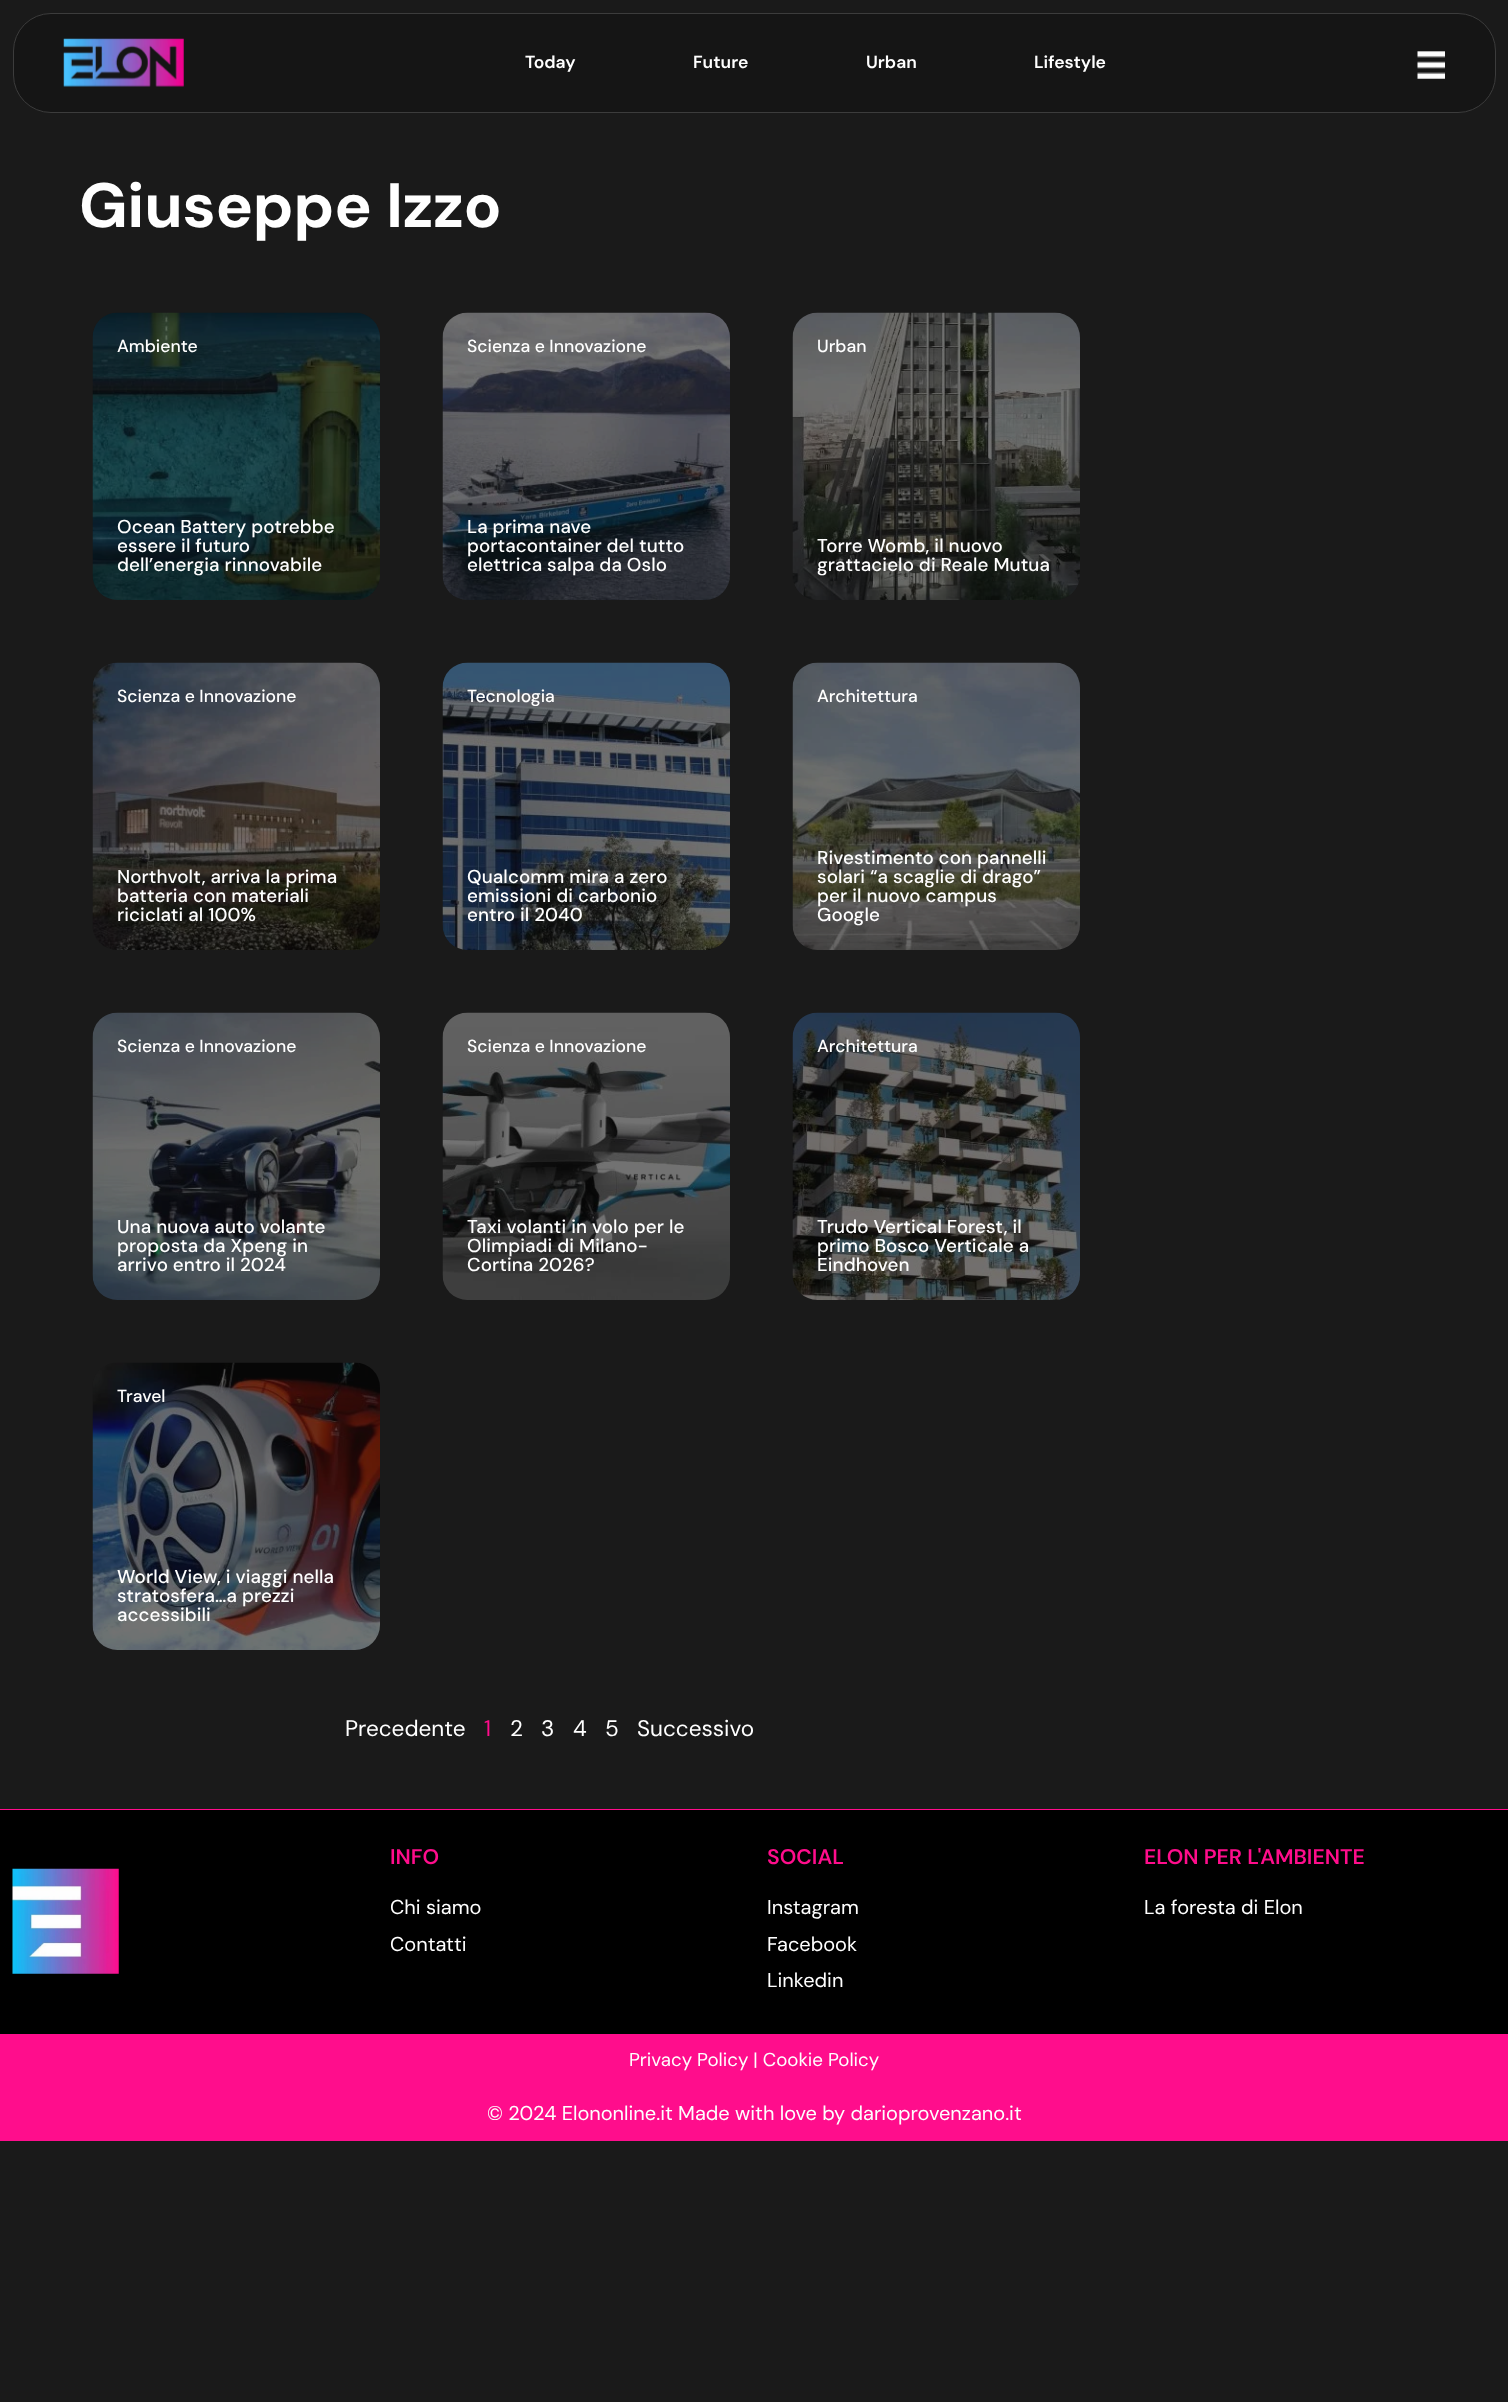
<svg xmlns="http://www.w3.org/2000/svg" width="1508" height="2402">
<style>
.a{font:600 17.5px DM Sans;fill:#fff}
.b{font:bold 62.5px DM Sans;letter-spacing:-0.25px;fill:#fff}
.c{font:500 17.5px DM Sans;fill:#fff}
.d{font:500 18.75px DM Sans;letter-spacing:0.1px;fill:#fff}
.e{font:22.5px DM Sans;fill:#fff}
.f{font:22.5px DM Sans;fill:#ff0d8c}
.g{font:600 21.25px DM Sans;fill:#ff0d8c}
.h{font:20px DM Sans;fill:#fff}
.i{font:18.75px DM Sans;fill:#fff}
</style>
<rect width="100%" height="100%" fill="#1a1a1a"/>
<rect fill="#151515" stroke="#3c3c3c" x="13.5" y="13.5" width="1482" height="99" rx="37.5"/>
<image href="1.png" x="63" y="38" width="121" height="49"/>
<image href="2.png" x="1417" y="51" width="28" height="28"/>
<image href="3.png" x="92" y="312" width="288" height="288"/>
<image href="4.png" x="442" y="312" width="288" height="288"/>
<image href="5.png" x="792" y="312" width="288" height="288"/>
<image href="6.png" x="92" y="662" width="288" height="288"/>
<image href="7.png" x="442" y="662" width="288" height="288"/>
<image href="8.png" x="792" y="662" width="288" height="288"/>
<image href="9.png" x="92" y="1012" width="288" height="288"/>
<image href="10.png" x="442" y="1012" width="288" height="288"/>
<image href="11.png" x="792" y="1012" width="288" height="288"/>
<image href="12.png" x="92" y="1362" width="288" height="288"/>
<path fill="#000" d="M0 1810h1508v224H0z"/>
<path fill="#ff0d8c" d="M0 1809h1508v1H0z"/>
<image href="13.png" x="12" y="1868" width="107" height="106"/>
<path fill="#ff0d8c" d="M0 2034h1508v107H0z"/>
<text class="a" x="525" y="68">Today</text>
<text class="a" x="693" y="68">Future</text>
<text class="a" x="866" y="68">Urban</text>
<text class="a" x="1034" y="68">Lifestyle</text>
<text class="b" x="79" y="227">Giuseppe Izzo</text>
<text class="c" x="117" y="352">Ambiente</text>
<text class="d" x="117" y="533">Ocean Battery potrebbe</text>
<text class="d" x="117" y="552">essere il futuro</text>
<text class="d" x="117" y="571">dell’energia rinnovabile</text>
<text class="c" x="467" y="352">Scienza e Innovazione</text>
<text class="d" x="467" y="533">La prima nave</text>
<text class="d" x="467" y="552">portacontainer del tutto</text>
<text class="d" x="467" y="571">elettrica salpa da Oslo</text>
<text class="c" x="817" y="352">Urban</text>
<text class="d" x="817" y="552">Torre Womb, il nuovo</text>
<text class="d" x="817" y="571">grattacielo di Reale Mutua</text>
<text class="c" x="117" y="702">Scienza e Innovazione</text>
<text class="d" x="117" y="883">Northvolt, arriva la prima</text>
<text class="d" x="117" y="902">batteria con materiali</text>
<text class="d" x="117" y="921">riciclati al 100%</text>
<text class="c" x="467" y="702">Tecnologia</text>
<text class="d" x="467" y="883">Qualcomm mira a zero</text>
<text class="d" x="467" y="902">emissioni di carbonio</text>
<text class="d" x="467" y="921">entro il 2040</text>
<text class="c" x="817" y="702">Architettura</text>
<text class="d" x="817" y="864">Rivestimento con pannelli</text>
<text class="d" x="817" y="883">solari “a scaglie di drago”</text>
<text class="d" x="817" y="902">per il nuovo campus</text>
<text class="d" x="817" y="921">Google</text>
<text class="c" x="117" y="1052">Scienza e Innovazione</text>
<text class="d" x="117" y="1233">Una nuova auto volante</text>
<text class="d" x="117" y="1252">proposta da Xpeng in</text>
<text class="d" x="117" y="1271">arrivo entro il 2024</text>
<text class="c" x="467" y="1052">Scienza e Innovazione</text>
<text class="d" x="467" y="1233">Taxi volanti in volo per le</text>
<text class="d" x="467" y="1252">Olimpiadi di Milano-</text>
<text class="d" x="467" y="1271">Cortina 2026?</text>
<text class="c" x="817" y="1052">Architettura</text>
<text class="d" x="817" y="1233">Trudo Vertical Forest, il</text>
<text class="d" x="817" y="1252">primo Bosco Verticale a</text>
<text class="d" x="817" y="1271">Eindhoven</text>
<text class="c" x="117" y="1402">Travel</text>
<text class="d" x="117" y="1583">World View, i viaggi nella</text>
<text class="d" x="117" y="1602">stratosfera…a prezzi</text>
<text class="d" x="117" y="1621">accessibili</text>
<text class="e" x="345" y="1736">Precedente</text>
<text class="f" x="484" y="1736">1</text>
<text class="e" x="510" y="1736">2</text>
<text class="e" x="541" y="1736">3</text>
<text class="e" x="573" y="1736">4</text>
<text class="e" x="605" y="1736">5</text>
<text class="e" x="637" y="1736">Successivo</text>
<text class="g" x="390" y="1864">INFO</text>
<text class="h" x="390" y="1914">Chi siamo</text>
<text class="h" x="390" y="1951">Contatti</text>
<text class="g" x="767" y="1864">SOCIAL</text>
<text class="h" x="767" y="1914">Instagram</text>
<text class="h" x="767" y="1951">Facebook</text>
<text class="h" x="767" y="1987">Linkedin</text>
<text class="g" x="1144" y="1864">ELON PER L'AMBIENTE</text>
<text class="h" x="1144" y="1914">La foresta di Elon</text>
<text class="i" x="629" y="2066">Privacy Policy | Cookie Policy</text>
<text class="h" x="487" y="2120">© 2024 Elononline.it Made with love by darioprovenzano.it</text>
</svg>
